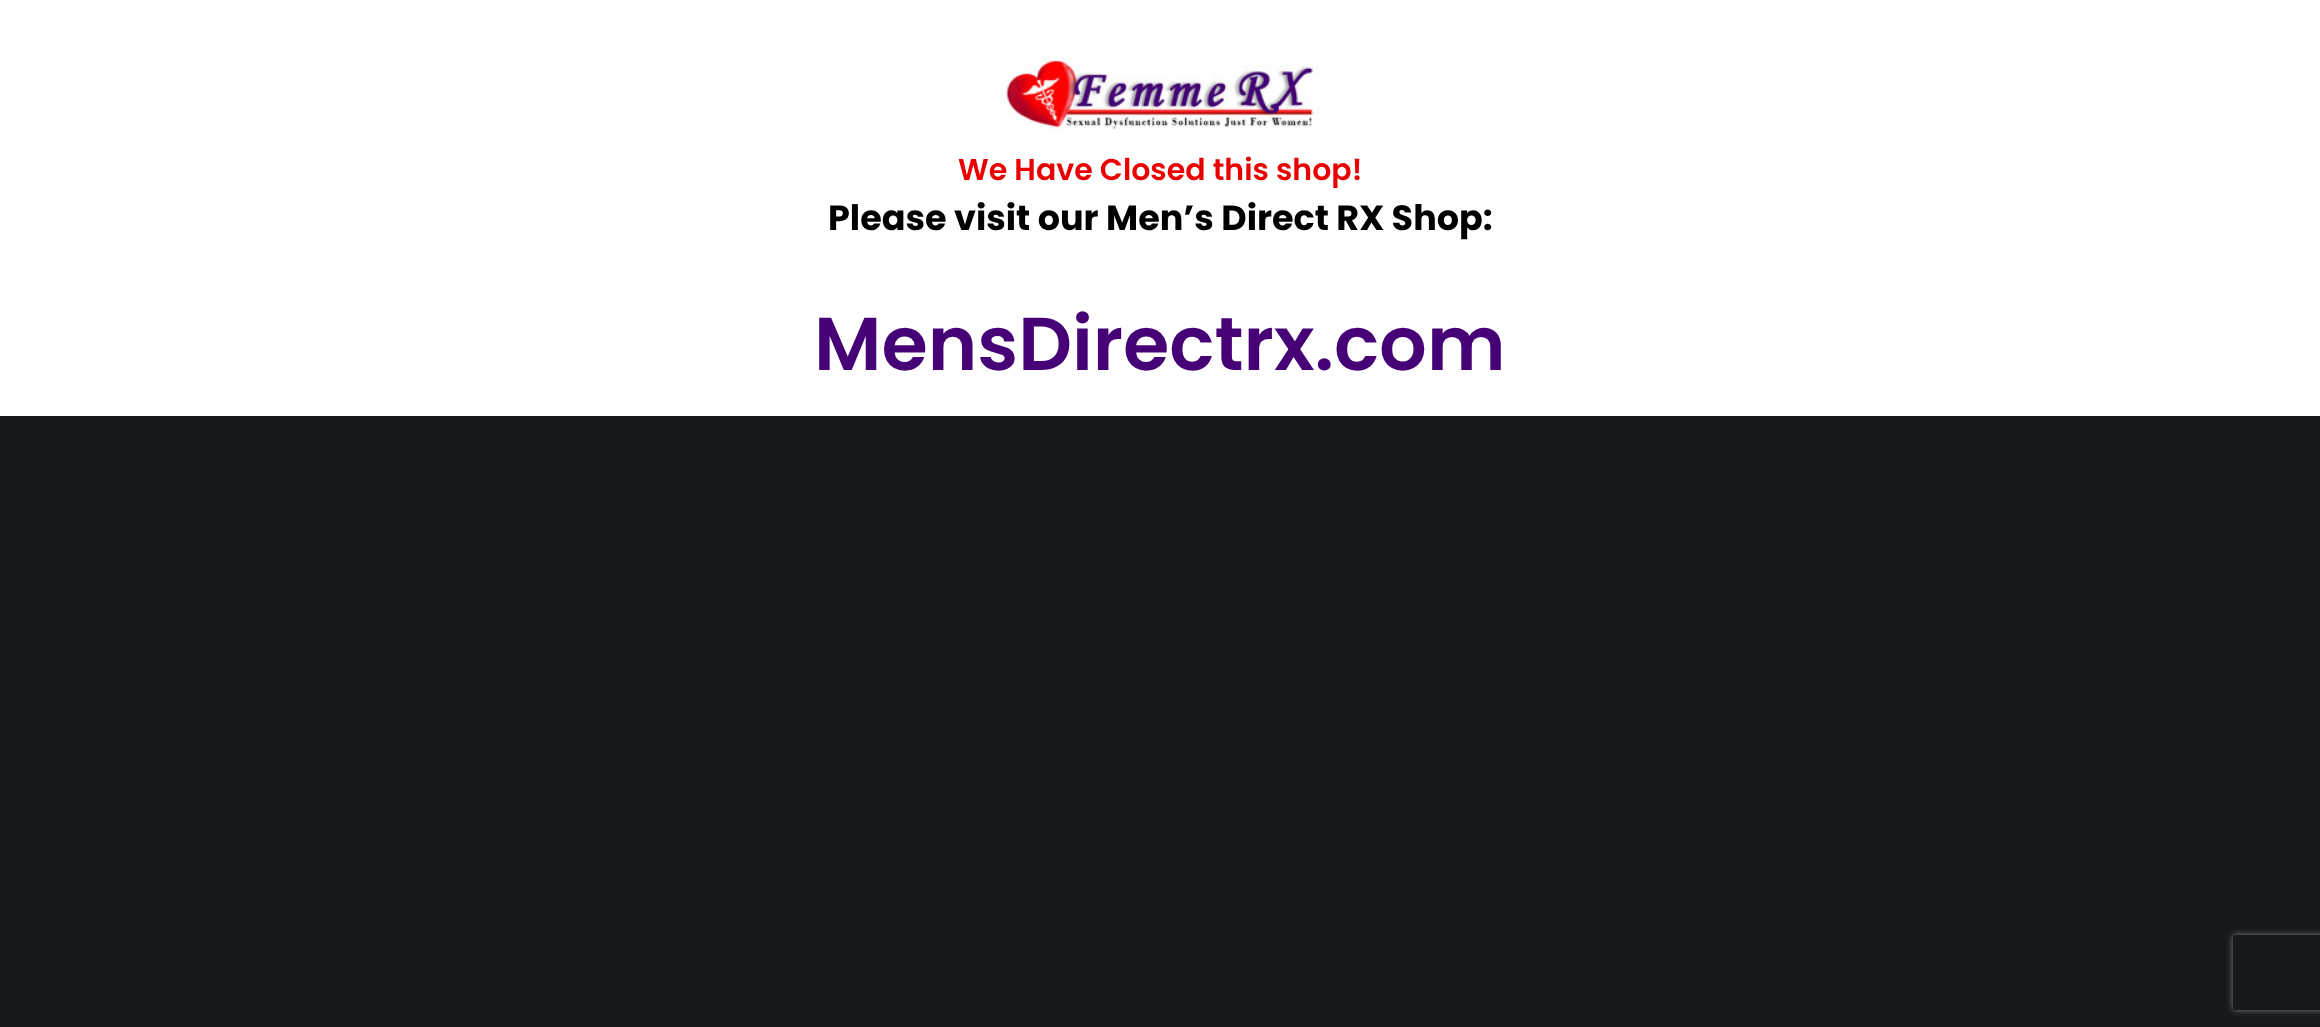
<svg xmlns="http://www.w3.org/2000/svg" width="2320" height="1027">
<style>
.a{font:600 30px Poppins;fill:#eb0000}
.b{font:bold 35px Poppins;fill:#000}
.c{font:600 75px Poppins;fill:#450175}
</style>
<defs>
<clipPath id="clip1"><path d="M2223 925h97v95h-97zm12.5 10h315c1.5 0 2.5 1 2.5 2.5v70c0 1.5-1 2.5-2.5 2.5h-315c-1.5 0-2.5-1-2.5-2.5v-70c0-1.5 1-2.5 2.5-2.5z" clip-rule="evenodd"/></clipPath>
</defs>
<rect width="100%" height="100%" fill="#171a1d"/>
<path fill="#fff" d="M0 0h2320v416H0z"/>
<image href="1.png" x="1001" y="55" width="320" height="79"/>
<g clip-path="url(#clip1)">
<rect fill="#808080" filter="blur(3px)" x="2233" y="935" width="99" height="75" rx="2.5"/>
</g>
<text class="a" x="958" y="180">We Have Closed this shop!</text>
<text class="b" x="828" y="230">Please visit our Men’s Direct RX Shop:</text>
<text class="c" x="814" y="370">MensDirectrx.com</text>
</svg>
